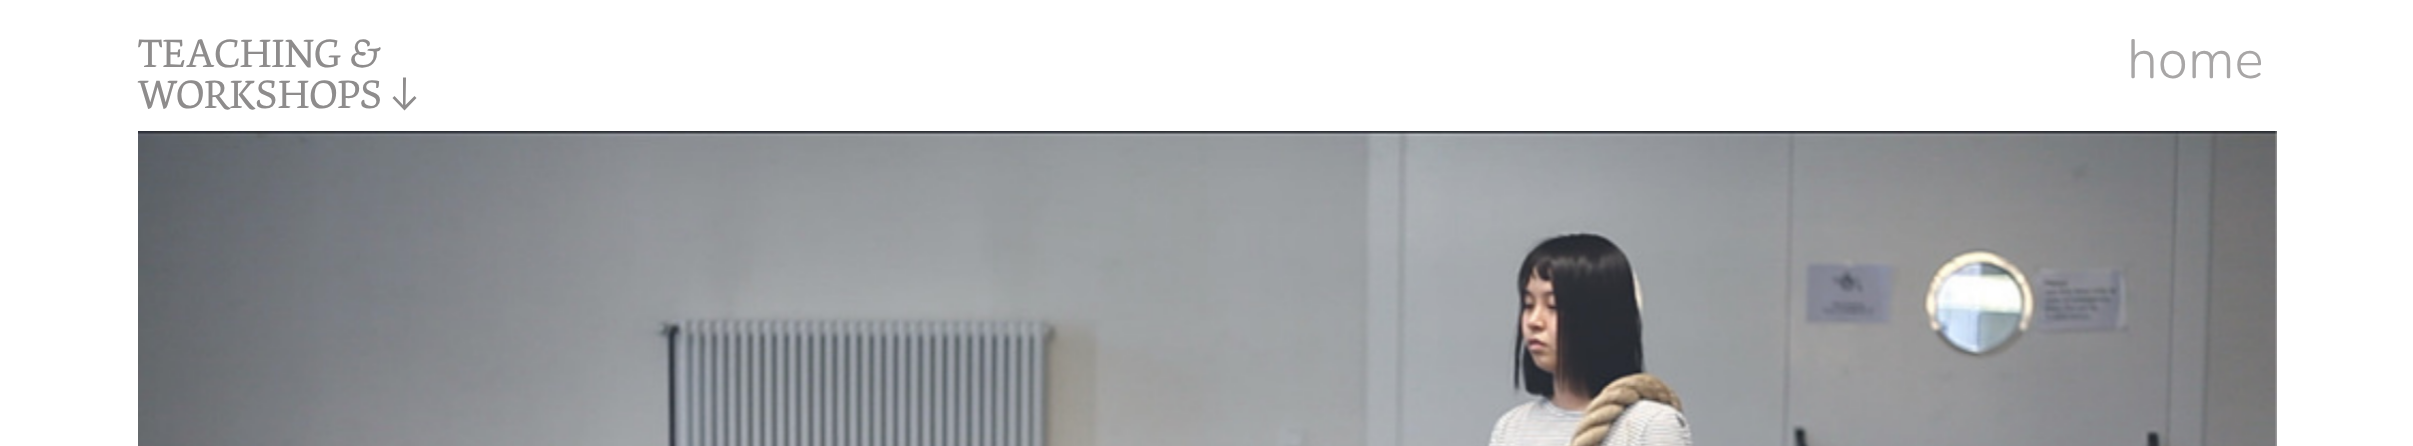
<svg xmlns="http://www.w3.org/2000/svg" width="2413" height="446">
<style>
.a{font:41.75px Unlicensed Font;fill:#8e8c8c}
.b{font:200 55px Nunito;fill:#a8a6a6}
</style>
<rect width="100%" height="100%" fill="#fff"/>
<path fill="#8e8c8c" d="M403 77.5v27.5l-8.5-9l-2 2l12 12.5l12-12.5l-2-2l-9 9l.5-27.5z"/>
<image href="1.png" x="138" y="131" width="2139" height="315"/>
<text class="a" x="138" y="67">TEACHING &amp;</text>
<text class="a" x="138" y="108">WORKSHOPS</text>
<text class="b" x="2127" y="78">home</text>
</svg>
